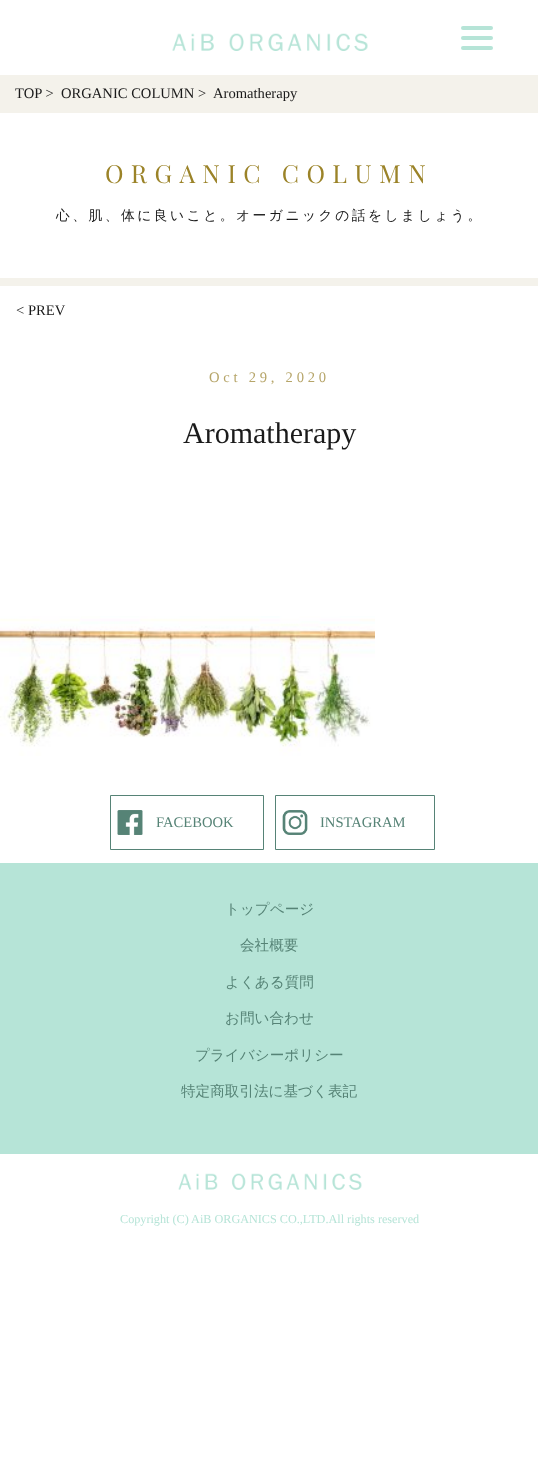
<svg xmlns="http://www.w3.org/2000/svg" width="538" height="1466">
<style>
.a{font:14.6px Liberation Serif;fill:#1a1a1a}
.b{font:25px Playfair Display;letter-spacing:7.5px;fill:#9b8328}
.c{font:500 13.75px WenQuanYi Zen Hei;letter-spacing:2.5px;fill:#1a1a1a}
.d{font:14.6px Liberation Serif;letter-spacing:3.75px;fill:#b6a569}
.e{font:30px Liberation Serif;fill:#1a1a1a}
.f{font:14.6px Liberation Serif;fill:#568376}
.g{font:500 14.6px WenQuanYi Zen Hei;fill:#568376}
.h{font:12.2px Liberation Serif;fill:#b6e4d7}
</style>
<rect width="100%" height="100%" fill="#fff"/>
<rect fill="#b6e4d7" x="461" y="36" width="32" height="4" rx="2"/>
<rect fill="#b6e4d7" x="461" y="26" width="32" height="4" rx="2"/>
<rect fill="#b6e4d7" x="461" y="46" width="32" height="4" rx="2"/>
<image href="1.png" x="172" y="33" width="196" height="18"/>
<path fill="#f4f2eb" d="M0 75h538v38H0z"/>
<path fill="#f4f2eb" d="M0 278h538v8H0z"/>
<image href="2.png" x="0" y="616" width="375" height="140"/>
<path fill="#b6e4d7" d="M0 863h538v291H0z"/>
<image href="3.png" x="117" y="810" width="26" height="25"/>
<path fill="none" stroke="#568376" d="M110.5 795.5h153v54H110.5z"/>
<image href="4.png" x="282" y="810" width="26" height="25"/>
<path fill="none" stroke="#568376" d="M275.5 795.5h159v54H275.5z"/>
<image href="5.png" x="178" y="1173" width="184" height="17"/>
<text class="a" x="15" y="98">TOP &gt;</text>
<text class="a" x="61" y="98">ORGANIC COLUMN</text>
<text class="a" x="198" y="98">&gt;</text>
<text class="a" x="213" y="98">Aromatherapy</text>
<text class="b" x="105" y="183">ORGANIC COLUMN</text>
<text class="c" x="56" y="220">心、肌、体に良いこと。オーガニックの話をしましょう。</text>
<text class="a" x="16" y="315">&lt; PREV</text>
<text class="d" x="209" y="382">Oct 29, 2020</text>
<text class="e" x="183" y="443">Aromatherapy</text>
<text class="f" x="156" y="827">FACEBOOK</text>
<text class="f" x="320" y="827">INSTAGRAM</text>
<text class="g" x="225" y="914">トップページ</text>
<text class="g" x="240" y="950">会社概要</text>
<text class="g" x="225" y="987">よくある質問</text>
<text class="g" x="225" y="1023">お問い合わせ</text>
<text class="g" x="195" y="1060">プライバシーポリシー</text>
<text class="g" x="181" y="1096">特定商取引法に基づく表記</text>
<text class="h" x="120" y="1223">Copyright (C) AiB ORGANICS CO.,LTD.All rights reserved</text>
</svg>
